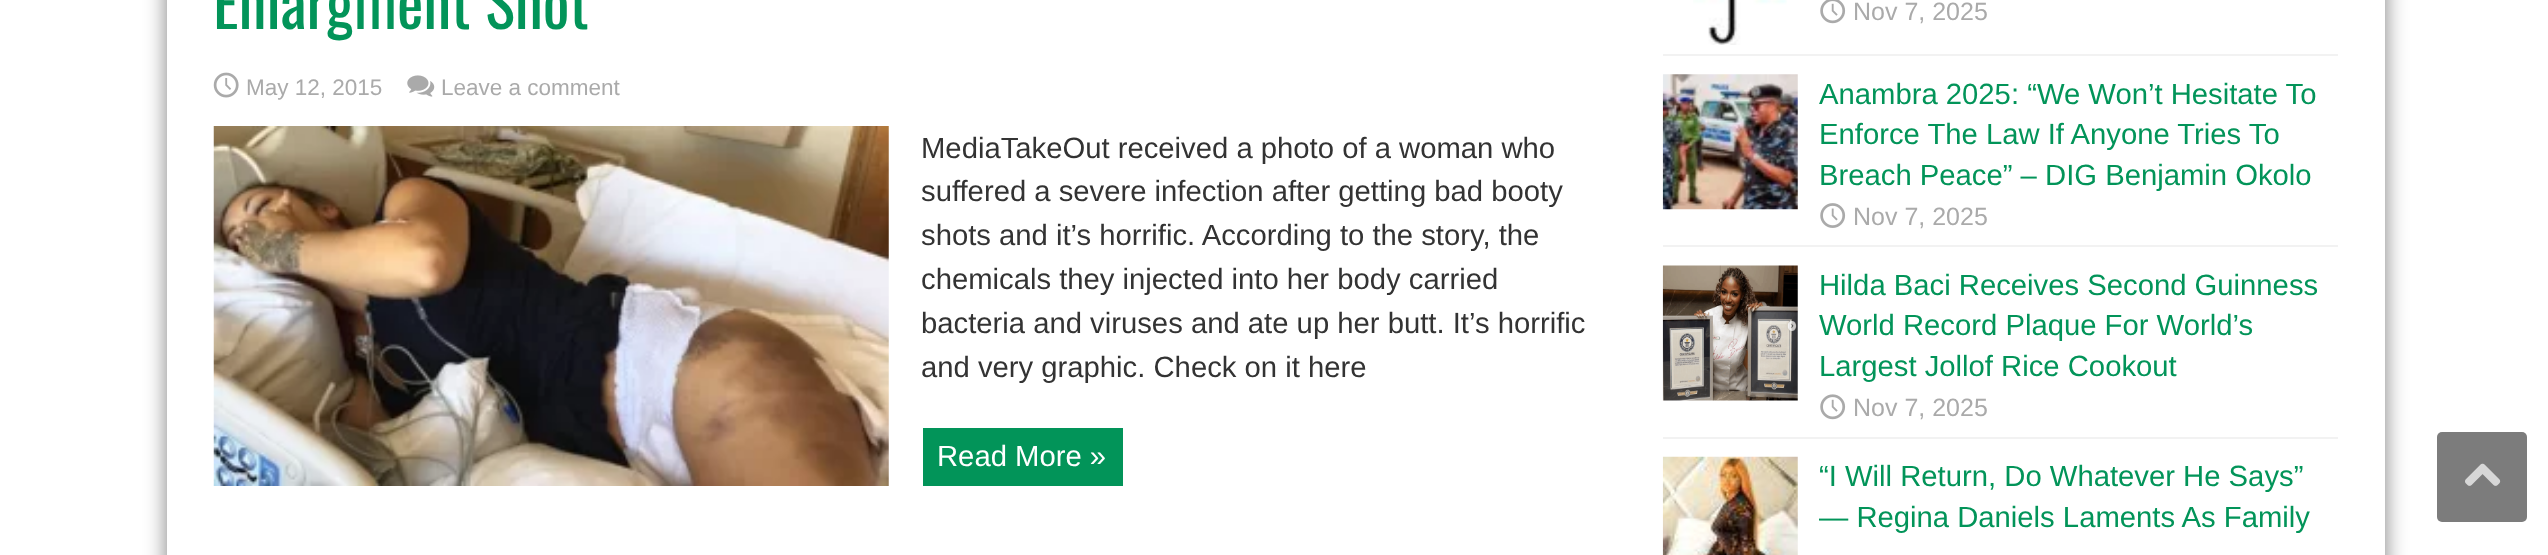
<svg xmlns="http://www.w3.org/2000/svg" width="2548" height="555">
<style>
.a{font:63px Oswald;fill:#029459}
.b{font:22.5px Liberation Sans;fill:#aaa}
.c{font:29.25px Liberation Sans;fill:#333}
.d{font:29.25px Liberation Sans;fill:#fff}
.e{font:25px Liberation Sans;fill:#aaa}
.f{font:29.25px Liberation Sans;fill:#029459}
</style>
<defs>
<clipPath id="clip1"><path d="M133 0h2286v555h-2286zm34-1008h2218v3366h-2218z" clip-rule="evenodd"/></clipPath>
</defs>
<rect width="100%" height="100%" fill="#fff"/>
<g clip-path="url(#clip1)">
<path fill="#00000080" filter="blur(11px)" d="M167 -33h2218v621H167z"/>
</g>
<image href="1.png" x="213" y="72" width="26" height="26"/>
<image href="2.png" x="407" y="75" width="28" height="22"/>
<image href="3.png" x="213" y="126" width="676" height="360"/>
<path fill="#029459" d="M923 428h200v58H923z"/>
<path fill="#f2f2f2" d="M1663 54h675v2H1663z"/>
<image href="4.png" x="1693" y="0" width="94" height="45"/>
<image href="5.png" x="1820" y="0" width="26" height="24"/>
<path fill="#f2f2f2" d="M1663 245h675v2H1663z"/>
<image href="6.png" x="1662" y="74" width="136" height="136"/>
<image href="7.png" x="1820" y="203" width="26" height="25"/>
<path fill="#f2f2f2" d="M1663 437h675v2H1663z"/>
<image href="8.png" x="1662" y="265" width="136" height="136"/>
<image href="9.png" x="1820" y="394" width="26" height="26"/>
<image href="10.png" x="1662" y="456" width="136" height="99"/>
<rect fill="#7c7c7c" x="2437" y="432" width="90" height="90" rx="5"/>
<image href="11.png" x="2465" y="463" width="36" height="23"/>
<text class="a" x="213" y="29">Enlargment Shot</text>
<text class="b" x="246" y="95">May 12, 2015</text>
<text class="b" x="441" y="95">Leave a comment</text>
<text class="c" x="921" y="158">MediaTakeOut received a photo of a woman who</text>
<text class="c" x="921" y="201">suffered a severe infection after getting bad booty</text>
<text class="c" x="921" y="245">shots and it’s horrific. According to the story, the</text>
<text class="c" x="921" y="289">chemicals they injected into her body carried</text>
<text class="c" x="921" y="333">bacteria and viruses and ate up her butt. It’s horrific</text>
<text class="c" x="921" y="377">and very graphic. Check on it here</text>
<text class="d" x="937" y="466">Read More »</text>
<text class="e" x="1853" y="20">Nov 7, 2025</text>
<text class="f" x="1819" y="104">Anambra 2025: “We Won’t Hesitate To</text>
<text class="f" x="1819" y="144">Enforce The Law If Anyone Tries To</text>
<text class="f" x="1819" y="185">Breach Peace” – DIG Benjamin Okolo</text>
<text class="e" x="1853" y="225">Nov 7, 2025</text>
<text class="f" x="1819" y="295">Hilda Baci Receives Second Guinness</text>
<text class="f" x="1819" y="335">World Record Plaque For World’s</text>
<text class="f" x="1819" y="376">Largest Jollof Rice Cookout</text>
<text class="e" x="1853" y="416">Nov 7, 2025</text>
<text class="f" x="1819" y="486">“I Will Return, Do Whatever He Says”</text>
<text class="f" x="1819" y="527">— Regina Daniels Laments As Family</text>
</svg>
